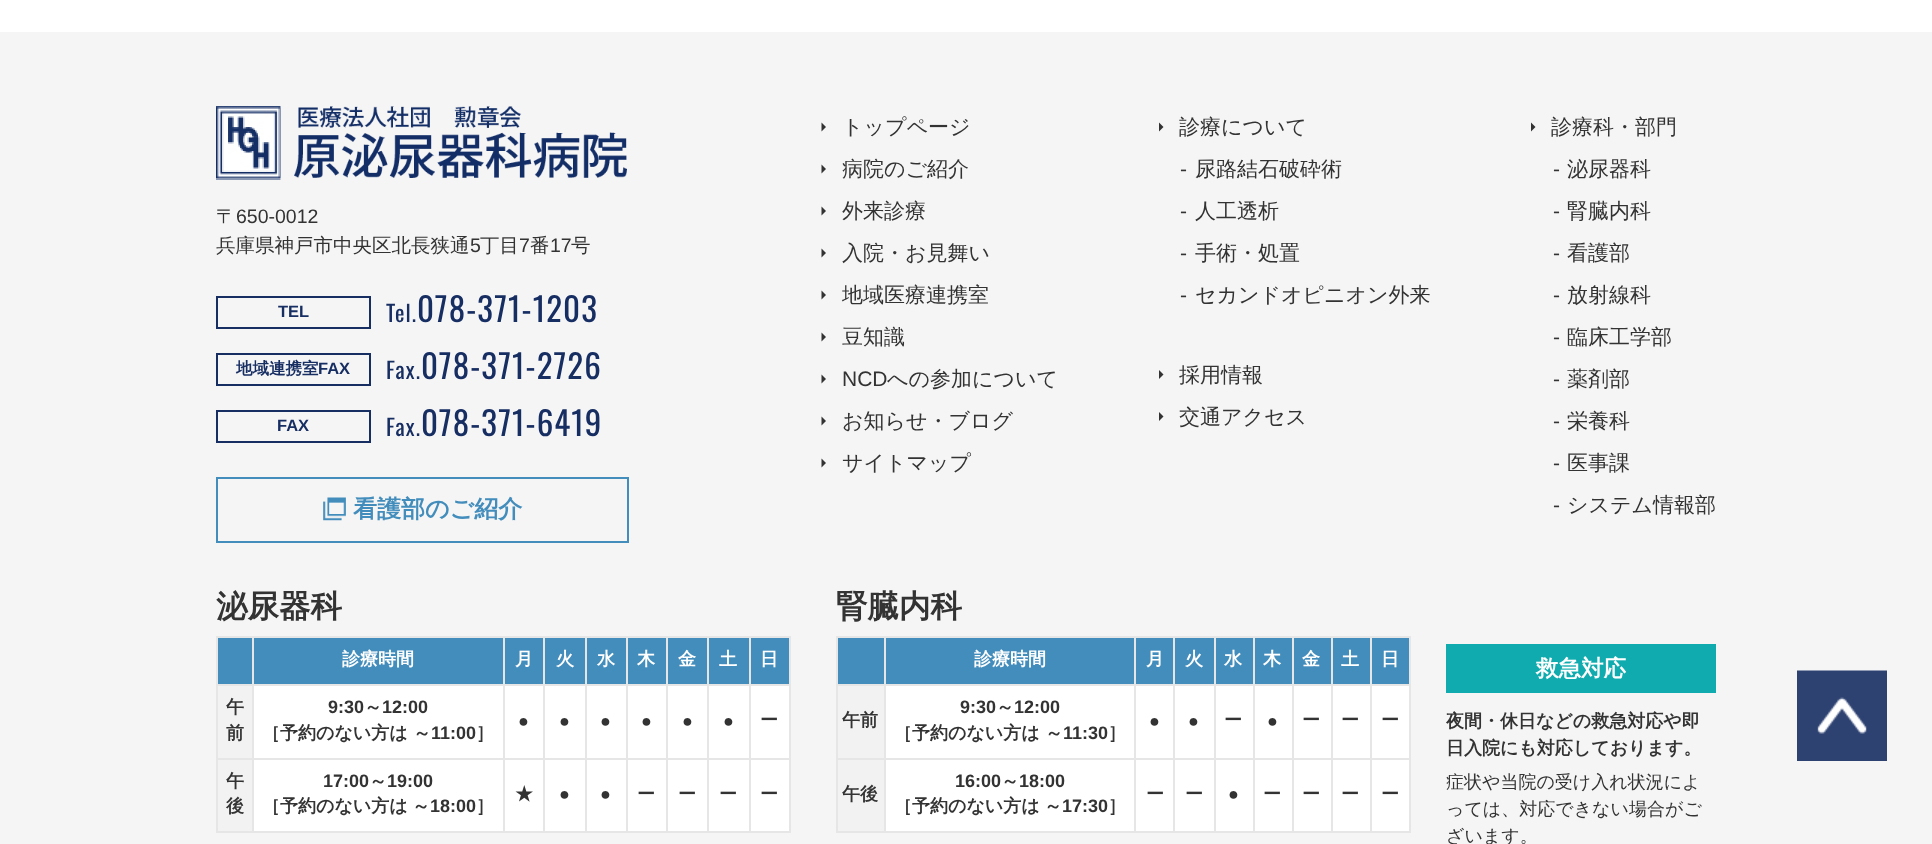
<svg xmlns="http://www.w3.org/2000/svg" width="1932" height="844">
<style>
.a{font:500 19.5px WenQuanYi Zen Hei;fill:#333}
.b{font:19.5px Liberation Sans;fill:#333}
.c{font:bold 16.5px Liberation Sans;fill:#172e63}
.d{font:22.5px Oswald;letter-spacing:1.1px;fill:#172e63}
.e{font:33px Oswald;letter-spacing:1.1px;fill:#172e63}
.f{font:bold 16.5px WenQuanYi Zen Hei;fill:#172e63}
.g{font:bold 24px WenQuanYi Zen Hei;fill:#438dbc}
.h{font:500 21px WenQuanYi Zen Hei;fill:#333}
.i{font:21px Liberation Sans;fill:#333}
.j{font:bold 31.5px WenQuanYi Zen Hei;fill:#333}
.k{font:bold 18px WenQuanYi Zen Hei;fill:#fff}
.l{font:bold 18px WenQuanYi Zen Hei;fill:#333}
.m{font:bold 18px Liberation Sans;fill:#333}
.n{font:bold 22.5px WenQuanYi Zen Hei;fill:#fff}
.o{font:500 18px WenQuanYi Zen Hei;fill:#333}
</style>
<rect width="100%" height="100%" fill="#fff"/>
<path fill="#f5f5f5" d="M0 32h1932v812H0z"/>
<image href="1.png" x="216" y="106" width="411" height="74"/>
<path fill="none" stroke="#172e63" stroke-width="2" d="M217 297h153v31H217z"/>
<path fill="none" stroke="#172e63" stroke-width="2" d="M217 354h153v31H217z"/>
<path fill="none" stroke="#172e63" stroke-width="2" d="M217 411h153v31H217z"/>
<path fill="none" stroke="#438dbc" stroke-width="2" d="M217 478h411v64H217z"/>
<image href="2.png" x="323" y="497" width="23" height="24"/>
<path fill="#333" d="M821.5 131.5l4.5-4.5l-4.5-4.5z"/>
<path fill="#333" d="M821.5 173.5l4.5-4.5l-4.5-4.5z"/>
<path fill="#333" d="M821.5 215.5l4.5-4.5l-4.5-4.5z"/>
<path fill="#333" d="M821.5 257.5l4.5-4.5l-4.5-4.5z"/>
<path fill="#333" d="M821.5 299.5l4.5-4.5l-4.5-4.5z"/>
<path fill="#333" d="M821.5 341.5l4.5-4.5l-4.5-4.5z"/>
<path fill="#333" d="M821.5 383.5l4.5-4.5l-4.5-4.5z"/>
<path fill="#333" d="M821.5 425.5l4.5-4.5l-4.5-4.5z"/>
<path fill="#333" d="M821.5 467.5l4.5-4.5l-4.5-4.5z"/>
<path fill="#333" d="M1159 131.5l4.5-4.5l-4.5-4.5z"/>
<path fill="#333" d="M1159 379l4.5-4.5l-4.5-4.5z"/>
<path fill="#333" d="M1159 421l4.5-4.5l-4.5-4.5z"/>
<path fill="#333" d="M1531 131.5l4.5-4.5l-4.5-4.5z"/>
<path fill="#438dbc" d="M218 638h34v46H218z"/>
<path fill="#e6e6e6" d="M749 636h42v2H749z"/>
<path fill="#e6e6e6" d="M749 684h42v2H749z"/>
<path fill="#e6e6e6" d="M749 758h42v2H749z"/>
<path fill="#e6e6e6" d="M789 758h2v75H789z"/>
<path fill="#e6e6e6" d="M749 831h42v2H749z"/>
<path fill="#e6e6e6" d="M749 758h2v75H749z"/>
<path fill="#e6e6e6" d="M707 758h43v2H707z"/>
<path fill="#e6e6e6" d="M749 684h2v75H749z"/>
<path fill="#e6e6e6" d="M707 684h43v2H707z"/>
<path fill="#e6e6e6" d="M749 636h2v50H749z"/>
<path fill="#e6e6e6" d="M707 636h43v2H707z"/>
<path fill="#e6e6e6" d="M707 831h43v2H707z"/>
<path fill="#e6e6e6" d="M707 758h2v75H707z"/>
<path fill="#e6e6e6" d="M666 758h42v2H666z"/>
<path fill="#e6e6e6" d="M707 684h2v75H707z"/>
<path fill="#e6e6e6" d="M666 684h42v2H666z"/>
<path fill="#e6e6e6" d="M707 636h2v50H707z"/>
<path fill="#e6e6e6" d="M666 636h42v2H666z"/>
<path fill="#e6e6e6" d="M666 831h42v2H666z"/>
<path fill="#e6e6e6" d="M666 758h2v75H666z"/>
<path fill="#e6e6e6" d="M626 758h42v2H626z"/>
<path fill="#e6e6e6" d="M666 684h2v75H666z"/>
<path fill="#e6e6e6" d="M626 684h42v2H626z"/>
<path fill="#e6e6e6" d="M666 636h2v50H666z"/>
<path fill="#e6e6e6" d="M626 636h42v2H626z"/>
<path fill="#e6e6e6" d="M626 831h42v2H626z"/>
<path fill="#e6e6e6" d="M626 758h2v75H626z"/>
<path fill="#e6e6e6" d="M585 758h42v2H585z"/>
<path fill="#e6e6e6" d="M626 684h2v75H626z"/>
<path fill="#e6e6e6" d="M585 684h42v2H585z"/>
<path fill="#e6e6e6" d="M626 636h2v50H626z"/>
<path fill="#e6e6e6" d="M585 636h42v2H585z"/>
<path fill="#e6e6e6" d="M585 831h42v2H585z"/>
<path fill="#e6e6e6" d="M585 758h2v75H585z"/>
<path fill="#e6e6e6" d="M543 758h44v2H543z"/>
<path fill="#e6e6e6" d="M585 684h2v75H585z"/>
<path fill="#e6e6e6" d="M543 684h44v2H543z"/>
<path fill="#e6e6e6" d="M585 636h2v50H585z"/>
<path fill="#e6e6e6" d="M543 636h44v2H543z"/>
<path fill="#e6e6e6" d="M543 831h44v2H543z"/>
<path fill="#e6e6e6" d="M543 758h2v75H543z"/>
<path fill="#e6e6e6" d="M503 758h42v2H503z"/>
<path fill="#e6e6e6" d="M543 684h2v75H543z"/>
<path fill="#e6e6e6" d="M503 684h42v2H503z"/>
<path fill="#e6e6e6" d="M543 636h2v50H543z"/>
<path fill="#e6e6e6" d="M503 636h42v2H503z"/>
<path fill="#e6e6e6" d="M503 831h42v2H503z"/>
<path fill="#e6e6e6" d="M503 758h2v75H503z"/>
<path fill="#e6e6e6" d="M252 758h252v2H252z"/>
<path fill="#e6e6e6" d="M503 684h2v75H503z"/>
<path fill="#e6e6e6" d="M252 684h252v2H252z"/>
<path fill="#e6e6e6" d="M503 636h2v50H503z"/>
<path fill="#e6e6e6" d="M252 636h252v2H252z"/>
<path fill="#e6e6e6" d="M252 831h252v2H252z"/>
<path fill="#e6e6e6" d="M252 758h2v75H252z"/>
<path fill="#e6e6e6" d="M216 758h38v2H216z"/>
<path fill="#e6e6e6" d="M252 684h2v75H252z"/>
<path fill="#e6e6e6" d="M216 684h38v2H216z"/>
<path fill="#e6e6e6" d="M252 636h2v50H252z"/>
<path fill="#e6e6e6" d="M216 636h38v2H216z"/>
<path fill="#e6e6e6" d="M216 831h38v2H216z"/>
<path fill="#e6e6e6" d="M216 758h2v75H216z"/>
<path fill="#e6e6e6" d="M216 684h2v75H216z"/>
<path fill="#e6e6e6" d="M216 636h2v50H216z"/>
<path fill="#438dbc" d="M254 638h249v46H254z"/>
<path fill="#438dbc" d="M505 638h38v46H505z"/>
<path fill="#438dbc" d="M545 638h40v46H545z"/>
<path fill="#438dbc" d="M587 638h39v46H587z"/>
<path fill="#438dbc" d="M628 638h38v46H628z"/>
<path fill="#438dbc" d="M668 638h39v46H668z"/>
<path fill="#438dbc" d="M709 638h40v46H709z"/>
<path fill="#438dbc" d="M751 638h38v46H751z"/>
<path fill="#e6e6e6" d="M789 684h2v75H789z"/>
<path fill="#e6e6e6" d="M789 636h2v50H789z"/>
<path fill="#f2f2f2" d="M218 686h34v72H218z"/>
<path fill="#fff" d="M254 686h249v72H254z"/>
<path fill="#fff" d="M505 686h38v72H505z"/>
<path fill="#fff" d="M545 686h40v72H545z"/>
<path fill="#fff" d="M587 686h39v72H587z"/>
<path fill="#fff" d="M628 686h38v72H628z"/>
<path fill="#fff" d="M668 686h39v72H668z"/>
<path fill="#fff" d="M709 686h40v72H709z"/>
<path fill="#fff" d="M751 686h38v72H751z"/>
<path fill="#f2f2f2" d="M218 760h34v71H218z"/>
<path fill="#fff" d="M254 760h249v71H254z"/>
<path fill="#fff" d="M505 760h38v71H505z"/>
<path fill="#fff" d="M545 760h40v71H545z"/>
<path fill="#fff" d="M587 760h39v71H587z"/>
<path fill="#fff" d="M628 760h38v71H628z"/>
<path fill="#fff" d="M668 760h39v71H668z"/>
<path fill="#fff" d="M709 760h40v71H709z"/>
<path fill="#fff" d="M751 760h38v71H751z"/>
<path fill="#438dbc" d="M838 638h46v46H838z"/>
<path fill="#e6e6e6" d="M1370 636h40v2H1370z"/>
<path fill="#e6e6e6" d="M1370 684h40v2H1370z"/>
<path fill="#e6e6e6" d="M1370 758h40v2H1370z"/>
<path fill="#e6e6e6" d="M1409 758h2v75H1409z"/>
<path fill="#e6e6e6" d="M1370 831h40v2H1370z"/>
<path fill="#e6e6e6" d="M1370 758h2v75H1370z"/>
<path fill="#e6e6e6" d="M1331 758h40v2H1331z"/>
<path fill="#e6e6e6" d="M1370 684h2v75H1370z"/>
<path fill="#e6e6e6" d="M1331 684h40v2H1331z"/>
<path fill="#e6e6e6" d="M1370 636h2v50H1370z"/>
<path fill="#e6e6e6" d="M1331 636h40v2H1331z"/>
<path fill="#e6e6e6" d="M1331 831h40v2H1331z"/>
<path fill="#e6e6e6" d="M1331 758h2v75H1331z"/>
<path fill="#e6e6e6" d="M1292 758h40v2H1292z"/>
<path fill="#e6e6e6" d="M1331 684h2v75H1331z"/>
<path fill="#e6e6e6" d="M1292 684h40v2H1292z"/>
<path fill="#e6e6e6" d="M1331 636h2v50H1331z"/>
<path fill="#e6e6e6" d="M1292 636h40v2H1292z"/>
<path fill="#e6e6e6" d="M1292 831h40v2H1292z"/>
<path fill="#e6e6e6" d="M1292 758h2v75H1292z"/>
<path fill="#e6e6e6" d="M1253 758h40v2H1253z"/>
<path fill="#e6e6e6" d="M1292 684h2v75H1292z"/>
<path fill="#e6e6e6" d="M1253 684h40v2H1253z"/>
<path fill="#e6e6e6" d="M1292 636h2v50H1292z"/>
<path fill="#e6e6e6" d="M1253 636h40v2H1253z"/>
<path fill="#e6e6e6" d="M1253 831h40v2H1253z"/>
<path fill="#e6e6e6" d="M1253 758h2v75H1253z"/>
<path fill="#e6e6e6" d="M1214 758h40v2H1214z"/>
<path fill="#e6e6e6" d="M1253 684h2v75H1253z"/>
<path fill="#e6e6e6" d="M1214 684h40v2H1214z"/>
<path fill="#e6e6e6" d="M1253 636h2v50H1253z"/>
<path fill="#e6e6e6" d="M1214 636h40v2H1214z"/>
<path fill="#e6e6e6" d="M1214 831h40v2H1214z"/>
<path fill="#e6e6e6" d="M1214 758h2v75H1214z"/>
<path fill="#e6e6e6" d="M1173 758h42v2H1173z"/>
<path fill="#e6e6e6" d="M1214 684h2v75H1214z"/>
<path fill="#e6e6e6" d="M1173 684h42v2H1173z"/>
<path fill="#e6e6e6" d="M1214 636h2v50H1214z"/>
<path fill="#e6e6e6" d="M1173 636h42v2H1173z"/>
<path fill="#e6e6e6" d="M1173 831h42v2H1173z"/>
<path fill="#e6e6e6" d="M1173 758h2v75H1173z"/>
<path fill="#e6e6e6" d="M1134 758h41v2H1134z"/>
<path fill="#e6e6e6" d="M1173 684h2v75H1173z"/>
<path fill="#e6e6e6" d="M1134 684h41v2H1134z"/>
<path fill="#e6e6e6" d="M1173 636h2v50H1173z"/>
<path fill="#e6e6e6" d="M1134 636h41v2H1134z"/>
<path fill="#e6e6e6" d="M1134 831h41v2H1134z"/>
<path fill="#e6e6e6" d="M1134 758h2v75H1134z"/>
<path fill="#e6e6e6" d="M884 758h252v2H884z"/>
<path fill="#e6e6e6" d="M1134 684h2v75H1134z"/>
<path fill="#e6e6e6" d="M884 684h252v2H884z"/>
<path fill="#e6e6e6" d="M1134 636h2v50H1134z"/>
<path fill="#e6e6e6" d="M884 636h252v2H884z"/>
<path fill="#e6e6e6" d="M884 831h252v2H884z"/>
<path fill="#e6e6e6" d="M884 758h2v75H884z"/>
<path fill="#e6e6e6" d="M836 758h49v2H836z"/>
<path fill="#e6e6e6" d="M884 684h2v75H884z"/>
<path fill="#e6e6e6" d="M836 684h49v2H836z"/>
<path fill="#e6e6e6" d="M884 636h2v50H884z"/>
<path fill="#e6e6e6" d="M836 636h49v2H836z"/>
<path fill="#e6e6e6" d="M836 831h49v2H836z"/>
<path fill="#e6e6e6" d="M836 758h2v75H836z"/>
<path fill="#e6e6e6" d="M836 684h2v75H836z"/>
<path fill="#e6e6e6" d="M836 636h2v50H836z"/>
<path fill="#438dbc" d="M886 638h248v46H886z"/>
<path fill="#438dbc" d="M1136 638h37v46H1136z"/>
<path fill="#438dbc" d="M1175 638h39v46H1175z"/>
<path fill="#438dbc" d="M1216 638h37v46H1216z"/>
<path fill="#438dbc" d="M1255 638h37v46H1255z"/>
<path fill="#438dbc" d="M1294 638h37v46H1294z"/>
<path fill="#438dbc" d="M1333 638h37v46H1333z"/>
<path fill="#438dbc" d="M1372 638h37v46H1372z"/>
<path fill="#e6e6e6" d="M1409 684h2v75H1409z"/>
<path fill="#e6e6e6" d="M1409 636h2v50H1409z"/>
<path fill="#f2f2f2" d="M838 686h46v72H838z"/>
<path fill="#fff" d="M886 686h248v72H886z"/>
<path fill="#fff" d="M1136 686h37v72H1136z"/>
<path fill="#fff" d="M1175 686h39v72H1175z"/>
<path fill="#fff" d="M1216 686h37v72H1216z"/>
<path fill="#fff" d="M1255 686h37v72H1255z"/>
<path fill="#fff" d="M1294 686h37v72H1294z"/>
<path fill="#fff" d="M1333 686h37v72H1333z"/>
<path fill="#fff" d="M1372 686h37v72H1372z"/>
<path fill="#f2f2f2" d="M838 760h46v71H838z"/>
<path fill="#fff" d="M886 760h248v71H886z"/>
<path fill="#fff" d="M1136 760h37v71H1136z"/>
<path fill="#fff" d="M1175 760h39v71H1175z"/>
<path fill="#fff" d="M1216 760h37v71H1216z"/>
<path fill="#fff" d="M1255 760h37v71H1255z"/>
<path fill="#fff" d="M1294 760h37v71H1294z"/>
<path fill="#fff" d="M1333 760h37v71H1333z"/>
<path fill="#fff" d="M1372 760h37v71H1372z"/>
<path fill="#0fabae" d="M1446 644h270v49H1446z"/>
<image href="3.png" x="1797" y="670" width="90" height="91"/>
<text class="a" x="216" y="223">〒</text>
<text class="b" x="236" y="223">650-0012</text>
<text class="a" x="216" y="252">兵庫県神戸市中央区北長狭通</text>
<text class="b" x="470" y="252">5</text>
<text class="a" x="480" y="252">丁目</text>
<text class="b" x="519" y="252">7</text>
<text class="a" x="530" y="252">番</text>
<text class="b" x="550" y="252">17</text>
<text class="a" x="571" y="252">号</text>
<text class="c" x="278" y="317">TEL</text>
<text class="d" x="386" y="322">Tel.</text>
<text class="e" x="417" y="322">078-371-1203</text>
<text class="f" x="236" y="374">地域連携室</text>
<text class="c" x="318" y="374">FAX</text>
<text class="d" x="386" y="379">Fax.</text>
<text class="e" x="421" y="379">078-371-2726</text>
<text class="c" x="277" y="431">FAX</text>
<text class="d" x="386" y="436">Fax.</text>
<text class="e" x="421" y="436">078-371-6419</text>
<text class="g" x="353" y="517">看護部のご紹介</text>
<text class="h" x="842" y="134">トップページ</text>
<text class="h" x="842" y="176">病院のご紹介</text>
<text class="h" x="842" y="218">外来診療</text>
<text class="h" x="842" y="260">入院・お見舞い</text>
<text class="h" x="842" y="302">地域医療連携室</text>
<text class="h" x="842" y="344">豆知識</text>
<text class="i" x="842" y="386">NCD</text>
<text class="h" x="887" y="386">への参加について</text>
<text class="h" x="842" y="428">お知らせ・ブログ</text>
<text class="h" x="842" y="470">サイトマップ</text>
<text class="h" x="1179" y="134">診療について</text>
<text class="i" x="1180" y="176">-</text>
<text class="h" x="1195" y="176">尿路結石破砕術</text>
<text class="i" x="1180" y="218">-</text>
<text class="h" x="1195" y="218">人工透析</text>
<text class="i" x="1180" y="260">-</text>
<text class="h" x="1195" y="260">手術・処置</text>
<text class="i" x="1180" y="302">-</text>
<text class="h" x="1195" y="302">セカンドオピニオン外来</text>
<text class="h" x="1179" y="382">採用情報</text>
<text class="h" x="1179" y="424">交通アクセス</text>
<text class="h" x="1551" y="134">診療科・部門</text>
<text class="i" x="1553" y="176">-</text>
<text class="h" x="1567" y="176">泌尿器科</text>
<text class="i" x="1553" y="218">-</text>
<text class="h" x="1567" y="218">腎臓内科</text>
<text class="i" x="1553" y="260">-</text>
<text class="h" x="1567" y="260">看護部</text>
<text class="i" x="1553" y="302">-</text>
<text class="h" x="1567" y="302">放射線科</text>
<text class="i" x="1553" y="344">-</text>
<text class="h" x="1567" y="344">臨床工学部</text>
<text class="i" x="1553" y="386">-</text>
<text class="h" x="1567" y="386">薬剤部</text>
<text class="i" x="1553" y="428">-</text>
<text class="h" x="1567" y="428">栄養科</text>
<text class="i" x="1553" y="470">-</text>
<text class="h" x="1567" y="470">医事課</text>
<text class="i" x="1553" y="512">-</text>
<text class="h" x="1567" y="512">システム情報部</text>
<text class="j" x="216" y="617">泌尿器科</text>
<text class="k" x="342" y="665">診療時間</text>
<text class="k" x="515" y="665">月</text>
<text class="k" x="556" y="665">火</text>
<text class="k" x="597" y="665">水</text>
<text class="k" x="637" y="665">木</text>
<text class="k" x="678" y="665">金</text>
<text class="k" x="719" y="665">土</text>
<text class="k" x="760" y="665">日</text>
<text class="l" x="226" y="713">午</text>
<text class="l" x="226" y="739">前</text>
<text class="m" x="328" y="713">9:30</text>
<text class="l" x="364" y="713">～</text>
<text class="m" x="382" y="713">12:00</text>
<text class="l" x="262" y="739">［予約のない方は</text>
<text class="l" x="413" y="739">～</text>
<text class="m" x="431" y="739">11:00</text>
<text class="l" x="476" y="739">］</text>
<text class="m" x="518" y="727">●</text>
<text class="m" x="559" y="727">●</text>
<text class="m" x="600" y="727">●</text>
<text class="m" x="641" y="727">●</text>
<text class="m" x="682" y="727">●</text>
<text class="m" x="723" y="727">●</text>
<text class="l" x="760" y="726">ー</text>
<text class="l" x="226" y="787">午</text>
<text class="l" x="226" y="812">後</text>
<text class="m" x="323" y="787">17:00</text>
<text class="l" x="369" y="787">～</text>
<text class="m" x="387" y="787">19:00</text>
<text class="l" x="262" y="812">［予約のない方は</text>
<text class="l" x="412" y="812">～</text>
<text class="m" x="430" y="812">18:00</text>
<text class="l" x="476" y="812">］</text>
<text class="l" x="515" y="800">★</text>
<text class="m" x="559" y="800">●</text>
<text class="m" x="600" y="800">●</text>
<text class="l" x="637" y="800">ー</text>
<text class="l" x="678" y="800">ー</text>
<text class="l" x="719" y="800">ー</text>
<text class="l" x="760" y="800">ー</text>
<text class="j" x="836" y="617">腎臓内科</text>
<text class="k" x="974" y="665">診療時間</text>
<text class="k" x="1146" y="665">月</text>
<text class="k" x="1185" y="665">火</text>
<text class="k" x="1224" y="665">水</text>
<text class="k" x="1263" y="665">木</text>
<text class="k" x="1302" y="665">金</text>
<text class="k" x="1341" y="665">土</text>
<text class="k" x="1381" y="665">日</text>
<text class="l" x="842" y="726">午前</text>
<text class="m" x="960" y="713">9:30</text>
<text class="l" x="996" y="713">～</text>
<text class="m" x="1014" y="713">12:00</text>
<text class="l" x="894" y="739">［予約のない方は</text>
<text class="l" x="1045" y="739">～</text>
<text class="m" x="1063" y="739">11:30</text>
<text class="l" x="1108" y="739">］</text>
<text class="m" x="1149" y="727">●</text>
<text class="m" x="1188" y="727">●</text>
<text class="l" x="1224" y="726">ー</text>
<text class="m" x="1267" y="727">●</text>
<text class="l" x="1302" y="726">ー</text>
<text class="l" x="1341" y="726">ー</text>
<text class="l" x="1381" y="726">ー</text>
<text class="l" x="842" y="800">午後</text>
<text class="m" x="955" y="787">16:00</text>
<text class="l" x="1001" y="787">～</text>
<text class="m" x="1019" y="787">18:00</text>
<text class="l" x="894" y="812">［予約のない方は</text>
<text class="l" x="1044" y="812">～</text>
<text class="m" x="1062" y="812">17:30</text>
<text class="l" x="1108" y="812">］</text>
<text class="l" x="1146" y="800">ー</text>
<text class="l" x="1185" y="800">ー</text>
<text class="m" x="1228" y="800">●</text>
<text class="l" x="1263" y="800">ー</text>
<text class="l" x="1302" y="800">ー</text>
<text class="l" x="1341" y="800">ー</text>
<text class="l" x="1381" y="800">ー</text>
<text class="n" x="1536" y="676">救急対応</text>
<text class="l" x="1446" y="727">夜間・休日などの救急対応や即</text>
<text class="l" x="1446" y="754">日入院にも対応しております。</text>
<text class="o" x="1446" y="788">症状や当院の受け入れ状況によ</text>
<text class="o" x="1446" y="815">っては、対応できない場合がご</text>
<text class="o" x="1446" y="842">ざいます。</text>
</svg>
